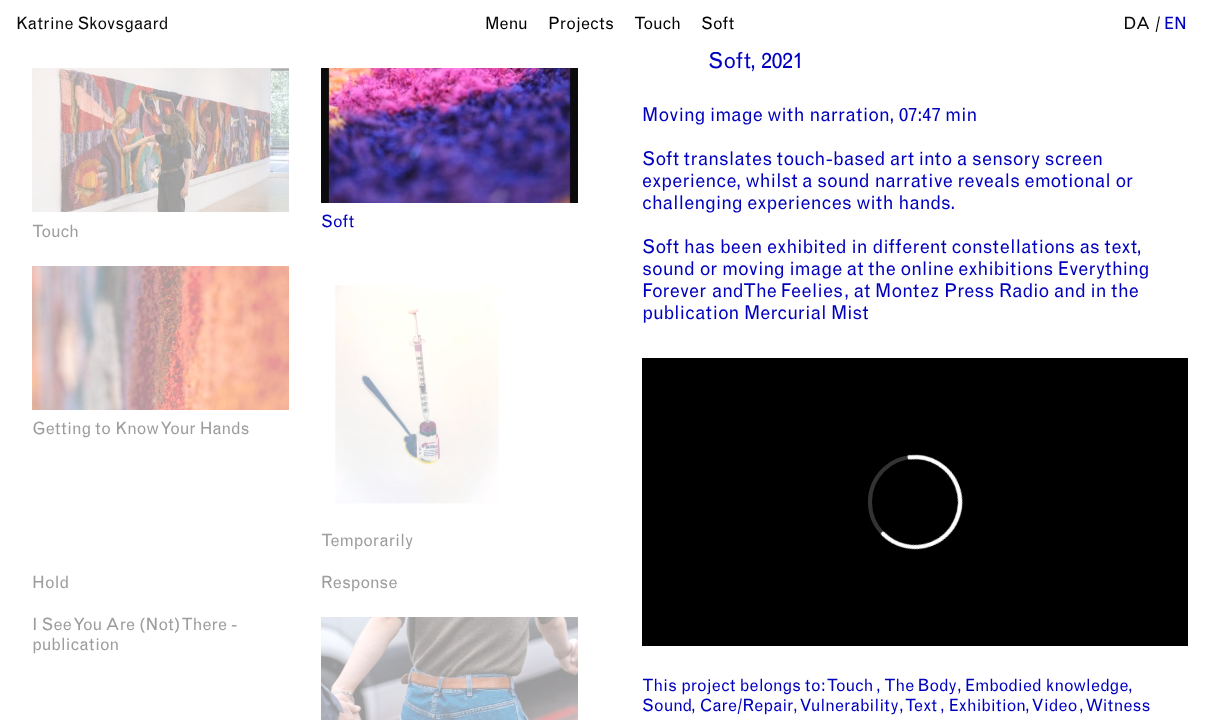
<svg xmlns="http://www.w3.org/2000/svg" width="1219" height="720">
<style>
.a{font:17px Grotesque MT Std;fill:#0a0a0a}
.b{font:17px Grotesque MT Std;fill:#000}
.c{font:17px Grotesque MT Std;fill:#0000be}
.d{font:17px Grotesque MT Std;fill:#9d9d9d}
.e{font:22px Grotesque MT Std;fill:#0000be}
.f{font:19px Grotesque MT Std;fill:#0000be}
</style>
<defs>
<clipPath id="clip1"><path d="M610 52h609v668H610z"/></clipPath>
</defs>
<rect width="100%" height="100%" fill="#fff"/>
<image href="1.png" x="321" y="68" width="257" height="135"/>
<image href="2.png" x="32" y="68" width="257" height="144"/>
<image href="3.png" x="32" y="266" width="257" height="144"/>
<image href="4.png" x="335" y="285" width="164" height="219"/>
<image href="5.png" x="321" y="617" width="257" height="103"/>
<image href="6.png" x="642" y="358" width="546" height="288"/>
<text class="a" x="16" y="29">Katrine Skovsgaard</text>
<text class="b" x="485" y="29">Menu</text>
<text class="b" x="548" y="29">Projects</text>
<text class="b" x="634" y="29">Touch</text>
<text class="b" x="701" y="29">Soft</text>
<text class="a" x="1123" y="29">DA</text>
<text class="b" x="1155" y="29">/</text>
<text class="c" x="1164" y="29">EN</text>
<text class="c" x="321" y="227">Soft</text>
<text class="d" x="32" y="237">Touch</text>
<text class="d" x="32" y="434">Getting to Know Your Hands</text>
<text class="d" x="321" y="546">Temporarily</text>
<text class="d" x="32" y="588">Hold</text>
<text class="d" x="321" y="588">Response</text>
<text class="d" x="32" y="630">I See You Are (Not) There -</text>
<text class="d" x="32" y="650">publication</text>
<g clip-path="url(#clip1)">
<text class="e" x="708" y="68">Soft</text>
</g>
<text class="e" x="750" y="68">, 2021</text>
<text class="f" x="642" y="121">Moving image with narration, 07:47 min</text>
<text class="f" x="642" y="165">Soft translates touch-based art into a sensory screen</text>
<text class="f" x="642" y="187">experience, whilst a sound narrative reveals emotional or</text>
<text class="f" x="642" y="209">challenging experiences with hands.</text>
<text class="f" x="642" y="253">Soft has been exhibited in different constellations as text,</text>
<text class="f" x="642" y="275">sound or moving image at the online exhibitions Everything</text>
<text class="f" x="642" y="297">Forever</text>
<text class="f" x="712" y="297">and</text>
<text class="f" x="743" y="297" word-spacing="-1">The Feelies</text>
<text class="f" x="844" y="297">, at Montez Press Radio and in the</text>
<text class="f" x="642" y="319">publication Mercurial Mist</text>
<text class="c" x="642" y="691">This project belongs to: Touch</text>
<text class="c" x="876" y="691">,</text>
<text class="c" x="884" y="691" word-spacing="-1">The Body</text>
<text class="c" x="957" y="691">,</text>
<text class="c" x="965" y="691">Embodied knowledge</text>
<text class="c" x="1128" y="691">,</text>
<text class="c" x="642" y="711">Sound</text>
<text class="c" x="691" y="711">, Care/Repair</text>
<text class="c" x="793" y="711">, Vulnerability</text>
<text class="c" x="899" y="711">, Text</text>
<text class="c" x="940" y="711">, Exhibition</text>
<text class="c" x="1025" y="711">, Video</text>
<text class="c" x="1079" y="711">, Witness</text>
</svg>
